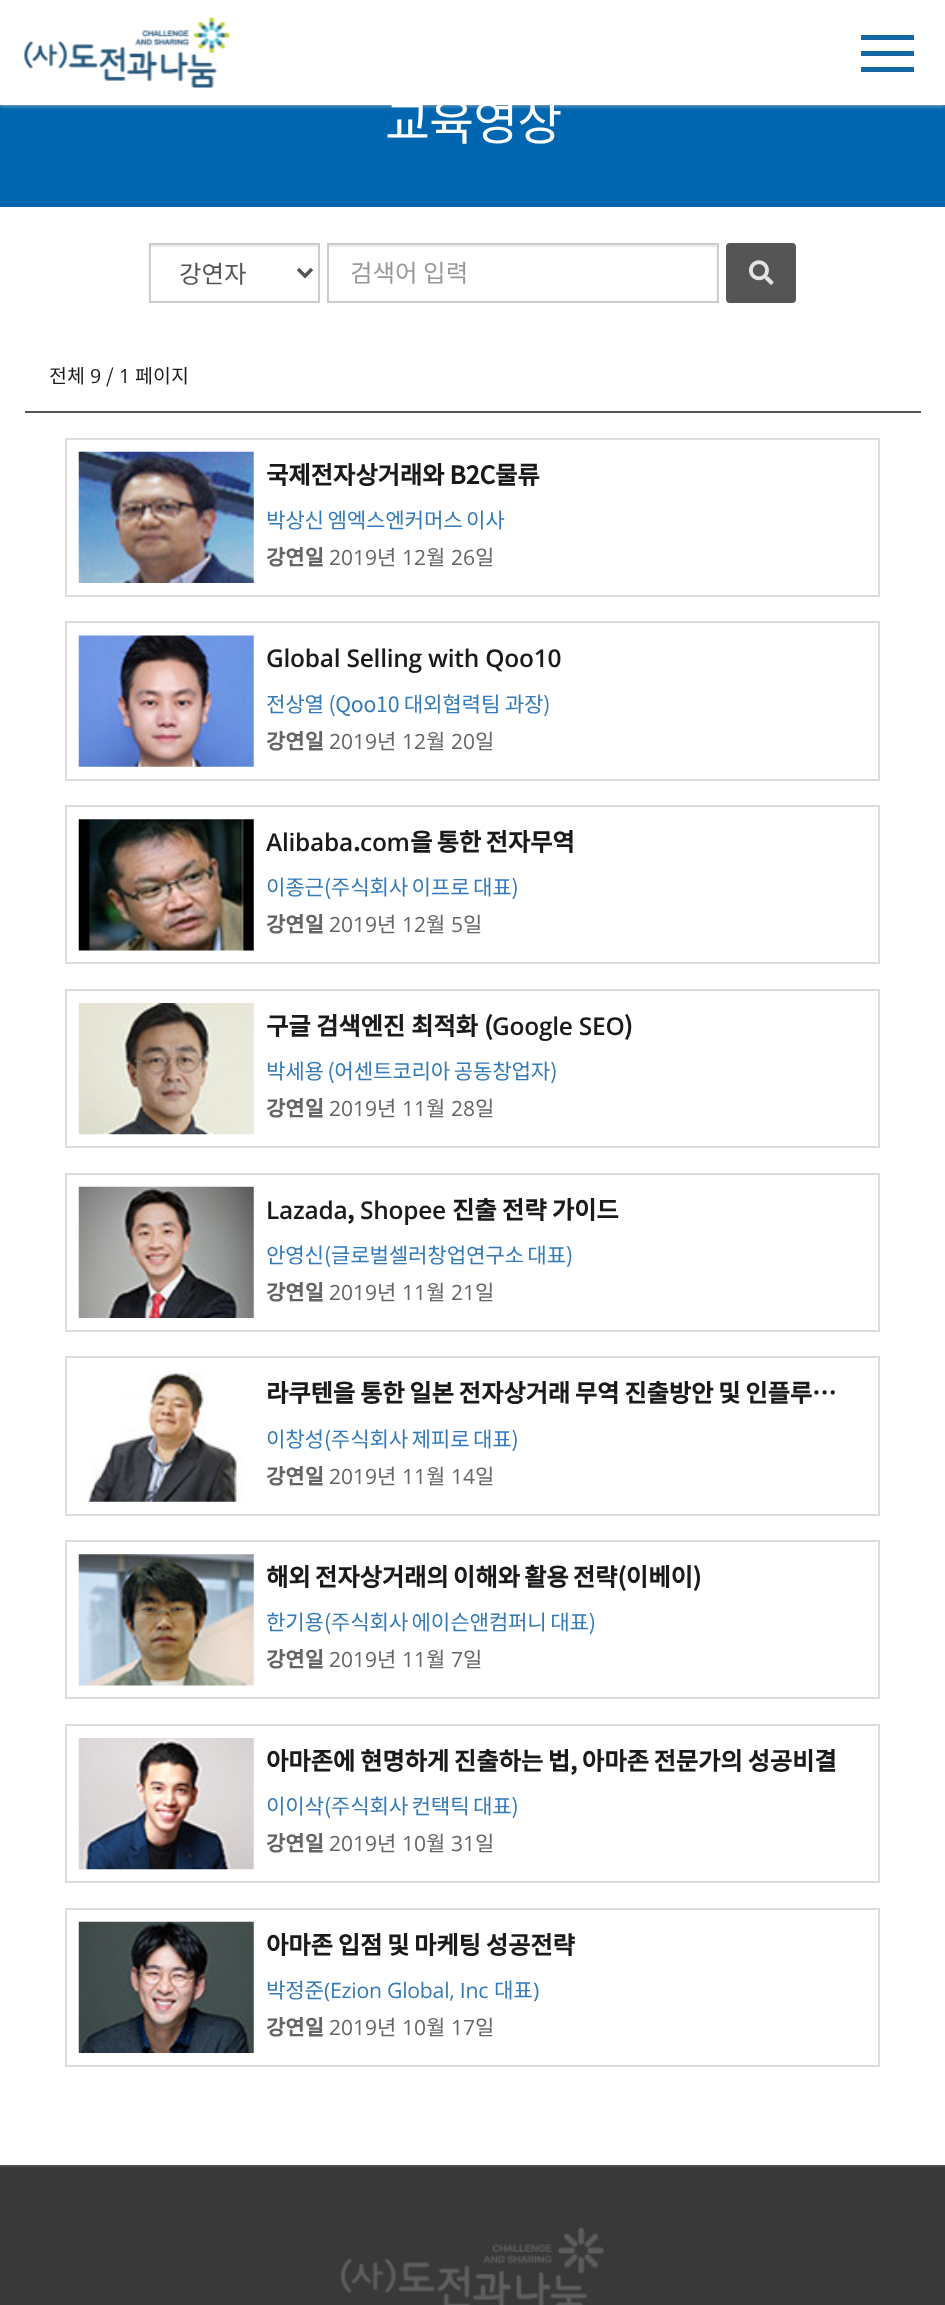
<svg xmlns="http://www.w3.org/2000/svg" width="945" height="2305">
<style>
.a{font:49px Noto Sans KR;letter-spacing:-1px;fill:#fff}
.b{font:24.5px Noto Sans KR;fill:#555}
.c{font:24.5px Noto Sans KR;fill:#999}
.d{font:19.5px Noto Sans KR;fill:#191a1a}
.e{font:19.5px Open Sans;fill:#191a1a}
.f{font:bold 24.5px Noto Sans KR;letter-spacing:-0.25px;fill:#191a1a}
.g{font:21.25px Noto Sans KR;letter-spacing:-0.25px;fill:#337ab7}
.h{font:bold 21px Noto Sans KR;fill:#646566}
.i{font:21px Open Sans;fill:#646566}
.j{font:21px Noto Sans KR;fill:#646566}
.k{font:600 24.5px Open Sans;letter-spacing:-0.25px;fill:#191a1a}
.l{font:21.25px Open Sans;letter-spacing:-0.25px;fill:#337ab7}
</style>
<rect width="100%" height="100%" fill="#fff"/>
<path fill="#0066af" d="M0 105h945v102H0z"/>
<path fill="#ccc" filter="blur(2.5px)" d="M0 0h945v105H0z"/>
<path fill="#fff" d="M0 0h945v105H0z"/>
<image href="1.png" x="24" y="17" width="206" height="71"/>
<path fill="#1368a5" d="M861 35h53v5H861z"/>
<path fill="#1368a5" d="M861 51h53v5H861z"/>
<path fill="#1368a5" d="M861 67h53v5H861z"/>
<path fill="#ececec" d="M151 245h168v2H151z"/>
<path fill="none" stroke="#ccc" stroke-width="2" d="M150 244h169v58H150z"/>
<path fill="none" stroke="#555" stroke-width="3.5" d="M298 269l7 7l7-7"/>
<path fill="#ececec" d="M329 245h389v2H329z"/>
<path fill="none" stroke="#ccc" stroke-width="2" d="M328 244h390v58H328z"/>
<rect fill="#555" stroke="#555" stroke-width="2" x="727" y="244" width="68" height="58" rx="3"/>
<image href="2.png" x="749" y="260" width="25" height="25"/>
<path fill="#555" d="M25 411h896v2H25z"/>
<path fill="none" stroke="#ddd" stroke-width="2" d="M66 439h813v157H66z"/>
<image href="3.png" x="78" y="451" width="176" height="132"/>
<path fill="none" stroke="#ddd" stroke-width="2" d="M66 622h813v158H66z"/>
<image href="4.png" x="78" y="635" width="176" height="132"/>
<path fill="none" stroke="#ddd" stroke-width="2" d="M66 806h813v157H66z"/>
<image href="5.png" x="78" y="819" width="176" height="132"/>
<path fill="none" stroke="#ddd" stroke-width="2" d="M66 990h813v157H66z"/>
<image href="6.png" x="78" y="1003" width="176" height="132"/>
<path fill="none" stroke="#ddd" stroke-width="2" d="M66 1174h813v157H66z"/>
<image href="7.png" x="78" y="1186" width="176" height="132"/>
<path fill="none" stroke="#ddd" stroke-width="2" d="M66 1357h813v158H66z"/>
<image href="8.png" x="79" y="1370" width="166" height="132"/>
<path fill="none" stroke="#ddd" stroke-width="2" d="M66 1541h813v157H66z"/>
<image href="9.png" x="78" y="1554" width="176" height="132"/>
<path fill="none" stroke="#ddd" stroke-width="2" d="M66 1725h813v157H66z"/>
<image href="10.png" x="78" y="1738" width="176" height="132"/>
<path fill="none" stroke="#ddd" stroke-width="2" d="M66 1909h813v157H66z"/>
<image href="11.png" x="78" y="1921" width="176" height="132"/>
<path fill="#393939" d="M0 2167h945v138H0z"/>
<path fill="#4f4f4f" d="M0 2165h945v2H0z"/>
<image href="12.png" x="341" y="2228" width="263" height="77"/>
<text class="a" x="385" y="140">교육영상</text>
<text class="b" x="179" y="283">강연자</text>
<text class="c" x="350" y="282">검색어 입력</text>
<text class="d" x="49" y="383">전체</text>
<text class="e" x="90" y="383">9</text>
<text class="d" x="106" y="383">/</text>
<text class="e" x="119" y="383">1</text>
<text class="d" x="135" y="383">페이지</text>
<text class="f" x="266" y="484">국제전자상거래와 B2C물류</text>
<text class="g" x="266" y="528" word-spacing="-1">박상신 엠엑스엔커머스 이사</text>
<text class="h" x="266" y="565">강연일</text>
<text class="i" x="329" y="565">2019</text>
<text class="j" x="377" y="565">년</text>
<text class="i" x="402" y="565">12</text>
<text class="j" x="426" y="565">월</text>
<text class="i" x="451" y="565">26</text>
<text class="j" x="475" y="565">일</text>
<text class="k" x="266" y="667">Global Selling with Qoo10</text>
<text class="g" x="266" y="712">전상열 (Qoo10 대외협력팀 과장)</text>
<text class="h" x="266" y="749">강연일</text>
<text class="i" x="329" y="749">2019</text>
<text class="j" x="377" y="749">년</text>
<text class="i" x="402" y="749">12</text>
<text class="j" x="426" y="749">월</text>
<text class="i" x="451" y="749">20</text>
<text class="j" x="475" y="749">일</text>
<text class="k" x="266" y="851">Alibaba</text>
<text class="f" x="353" y="851">.</text>
<text class="k" x="360" y="851">com</text>
<text class="f" x="410" y="851" word-spacing="-1">을 통한 전자무역</text>
<text class="g" x="266" y="895" word-spacing="-1">이종근(주식회사 이프로 대표)</text>
<text class="h" x="266" y="932">강연일</text>
<text class="i" x="329" y="932">2019</text>
<text class="j" x="377" y="932">년</text>
<text class="i" x="402" y="932">12</text>
<text class="j" x="426" y="932">월</text>
<text class="i" x="451" y="932">5</text>
<text class="j" x="463" y="932">일</text>
<text class="f" x="266" y="1035">구글</text>
<text class="f" x="316" y="1035">검색엔진</text>
<text class="f" x="411" y="1035">최적화</text>
<text class="f" x="484" y="1035">(</text>
<text class="k" x="492" y="1035">Google SEO</text>
<text class="f" x="624" y="1035">)</text>
<text class="g" x="266" y="1079" word-spacing="-1">박세용 (어센트코리아 공동창업자)</text>
<text class="h" x="266" y="1116">강연일</text>
<text class="i" x="329" y="1116">2019</text>
<text class="j" x="377" y="1116">년</text>
<text class="i" x="402" y="1116">11</text>
<text class="j" x="426" y="1116">월</text>
<text class="i" x="451" y="1116">28</text>
<text class="j" x="475" y="1116">일</text>
<text class="k" x="266" y="1219">Lazada</text>
<text class="f" x="347" y="1219">,</text>
<text class="k" x="360" y="1219">Shopee</text>
<text class="f" x="452" y="1219">진출 전략 가이드</text>
<text class="g" x="266" y="1263" word-spacing="-1">안영신(글로벌셀러창업연구소 대표)</text>
<text class="h" x="266" y="1300">강연일</text>
<text class="i" x="329" y="1300">2019</text>
<text class="j" x="377" y="1300">년</text>
<text class="i" x="402" y="1300">11</text>
<text class="j" x="426" y="1300">월</text>
<text class="i" x="451" y="1300">21</text>
<text class="j" x="475" y="1300">일</text>
<text class="f" x="266" y="1402" word-spacing="-0.5">라쿠텐을 통한 일본 전자상거래 무역 진출방안 및 인플루…</text>
<text class="g" x="266" y="1447" word-spacing="-1">이창성(주식회사 제피로 대표)</text>
<text class="h" x="266" y="1484">강연일</text>
<text class="i" x="329" y="1484">2019</text>
<text class="j" x="377" y="1484">년</text>
<text class="i" x="402" y="1484">11</text>
<text class="j" x="426" y="1484">월</text>
<text class="i" x="451" y="1484">14</text>
<text class="j" x="475" y="1484">일</text>
<text class="f" x="266" y="1586" word-spacing="-1">해외 전자상거래의 이해와 활용 전략(이베이)</text>
<text class="g" x="266" y="1630" word-spacing="-1">한기용(주식회사 에이슨앤컴퍼니 대표)</text>
<text class="h" x="266" y="1667">강연일</text>
<text class="i" x="329" y="1667">2019</text>
<text class="j" x="377" y="1667">년</text>
<text class="i" x="402" y="1667">11</text>
<text class="j" x="426" y="1667">월</text>
<text class="i" x="451" y="1667">7</text>
<text class="j" x="463" y="1667">일</text>
<text class="f" x="266" y="1770" word-spacing="-0.5">아마존에 현명하게 진출하는 법, 아마존 전문가의 성공비결</text>
<text class="g" x="266" y="1814" word-spacing="-1">이이삭(주식회사 컨택틱 대표)</text>
<text class="h" x="266" y="1851">강연일</text>
<text class="i" x="329" y="1851">2019</text>
<text class="j" x="377" y="1851">년</text>
<text class="i" x="402" y="1851">10</text>
<text class="j" x="426" y="1851">월</text>
<text class="i" x="451" y="1851">31</text>
<text class="j" x="475" y="1851">일</text>
<text class="f" x="266" y="1954" word-spacing="-0.5">아마존 입점 및 마케팅 성공전략</text>
<text class="g" x="266" y="1998">박정준</text>
<text class="l" x="324" y="1998">(Ezion Global, Inc</text>
<text class="g" x="494" y="1998">대표</text>
<text class="l" x="533" y="1998">)</text>
<text class="h" x="266" y="2035">강연일</text>
<text class="i" x="329" y="2035">2019</text>
<text class="j" x="377" y="2035">년</text>
<text class="i" x="402" y="2035">10</text>
<text class="j" x="426" y="2035">월</text>
<text class="i" x="451" y="2035">17</text>
<text class="j" x="475" y="2035">일</text>
</svg>
